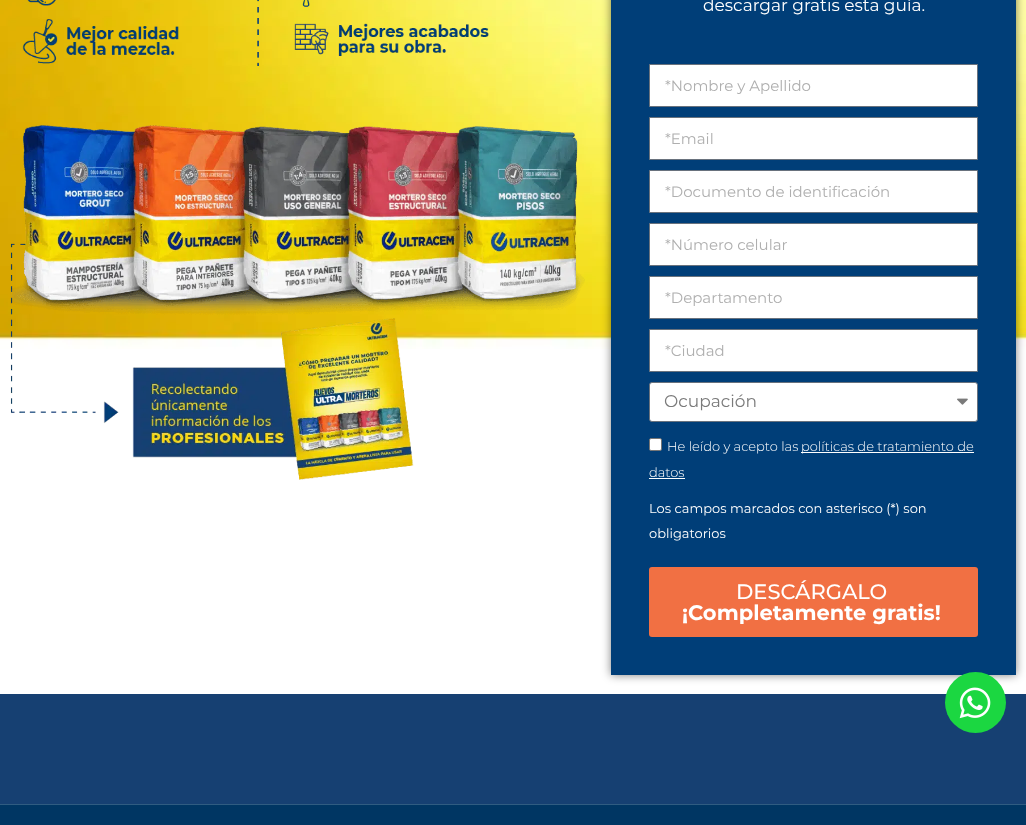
<svg xmlns="http://www.w3.org/2000/svg" width="1026" height="825">
<style>
.a{font:17px Montserrat;fill:#fff}
.b{font:15px Montserrat;fill:#afafaf}
.c{font:17px Montserrat;fill:#7a7a7a}
.d{font:300 13px Montserrat;fill:#fff}
.e{font:13px Montserrat;fill:#fff}
.f{font:500 21px Montserrat;fill:#fff}
.g{font:bold 21px Montserrat;fill:#fff}
</style>
<defs>
<clipPath id="clip1"><path d="M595 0h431v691h-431zm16-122h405v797h-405z" clip-rule="evenodd"/></clipPath>
</defs>
<rect width="100%" height="100%" fill="#fff"/>
<image href="1.png" x="0" y="0" width="1026" height="349"/>
<image href="2.png" x="22" y="0" width="467" height="66"/>
<image href="3.png" x="10" y="125" width="575" height="355"/>
<path fill="#003e78" d="M611 0h405v675H611z"/>
<g clip-path="url(#clip1)">
<path fill="#00000080" filter="blur(5px)" d="M611 -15h405v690H611z"/>
</g>
<path fill="#fff" stroke="#69727d" d="M649.5 64.5h328v42H649.5z"/>
<path fill="#fff" stroke="#69727d" d="M649.5 117.5h328v42H649.5z"/>
<path fill="#fff" stroke="#69727d" d="M649.5 170.5h328v42H649.5z"/>
<path fill="#fff" stroke="#69727d" d="M649.5 223.5h328v42H649.5z"/>
<path fill="#fff" stroke="#69727d" d="M649.5 276.5h328v42H649.5z"/>
<path fill="#fff" stroke="#69727d" d="M649.5 329.5h328v42H649.5z"/>
<rect fill="#fff" stroke="#69727d" x="649.5" y="382.5" width="328" height="39" rx="2.5"/>
<image href="4.png" x="957" y="398" width="11" height="7"/>
<rect fill="#fff" stroke="#767676" x="649.5" y="438.5" width="12" height="12" rx="1.5"/>
<path fill="#fff" d="M801 452h173v1H801z"/>
<path fill="#fff" d="M649 478h36v1H649z"/>
<rect fill="#f17043" x="649" y="567" width="329" height="70" rx="3"/>
<path fill="#003663" d="M0 805h1026v20H0z"/>
<path fill="#305c81" d="M0 804h1026v1H0z"/>
<path fill="#164072" d="M0 694h1026v110H0z"/>
<circle fill="#1bd741" cx="975.5" cy="702.5" r="30.5"/>
<image href="5.png" x="959" y="687" width="32" height="32"/>
<text class="a" x="703" y="11">descargar gratis esta guía.</text>
<text class="b" x="665" y="91">*Nombre y Apellido</text>
<text class="b" x="665" y="144">*Email</text>
<text class="b" x="665" y="197">*Documento de identificación</text>
<text class="b" x="665" y="250">*Número celular</text>
<text class="b" x="665" y="303">*Departamento</text>
<text class="b" x="665" y="356">*Ciudad</text>
<text class="c" x="664" y="407">Ocupación</text>
<text class="d" x="667" y="451">He leído y acepto las</text>
<text class="d" x="801" y="451">políticas de tratamiento de</text>
<text class="d" x="649" y="477">datos</text>
<text class="e" x="649" y="513">Los campos marcados con asterisco (*) son</text>
<text class="e" x="649" y="538">obligatorios</text>
<text class="f" x="736" y="599">DESCÁRGALO</text>
<text class="g" x="682" y="620">¡Completamente gratis!</text>
</svg>
